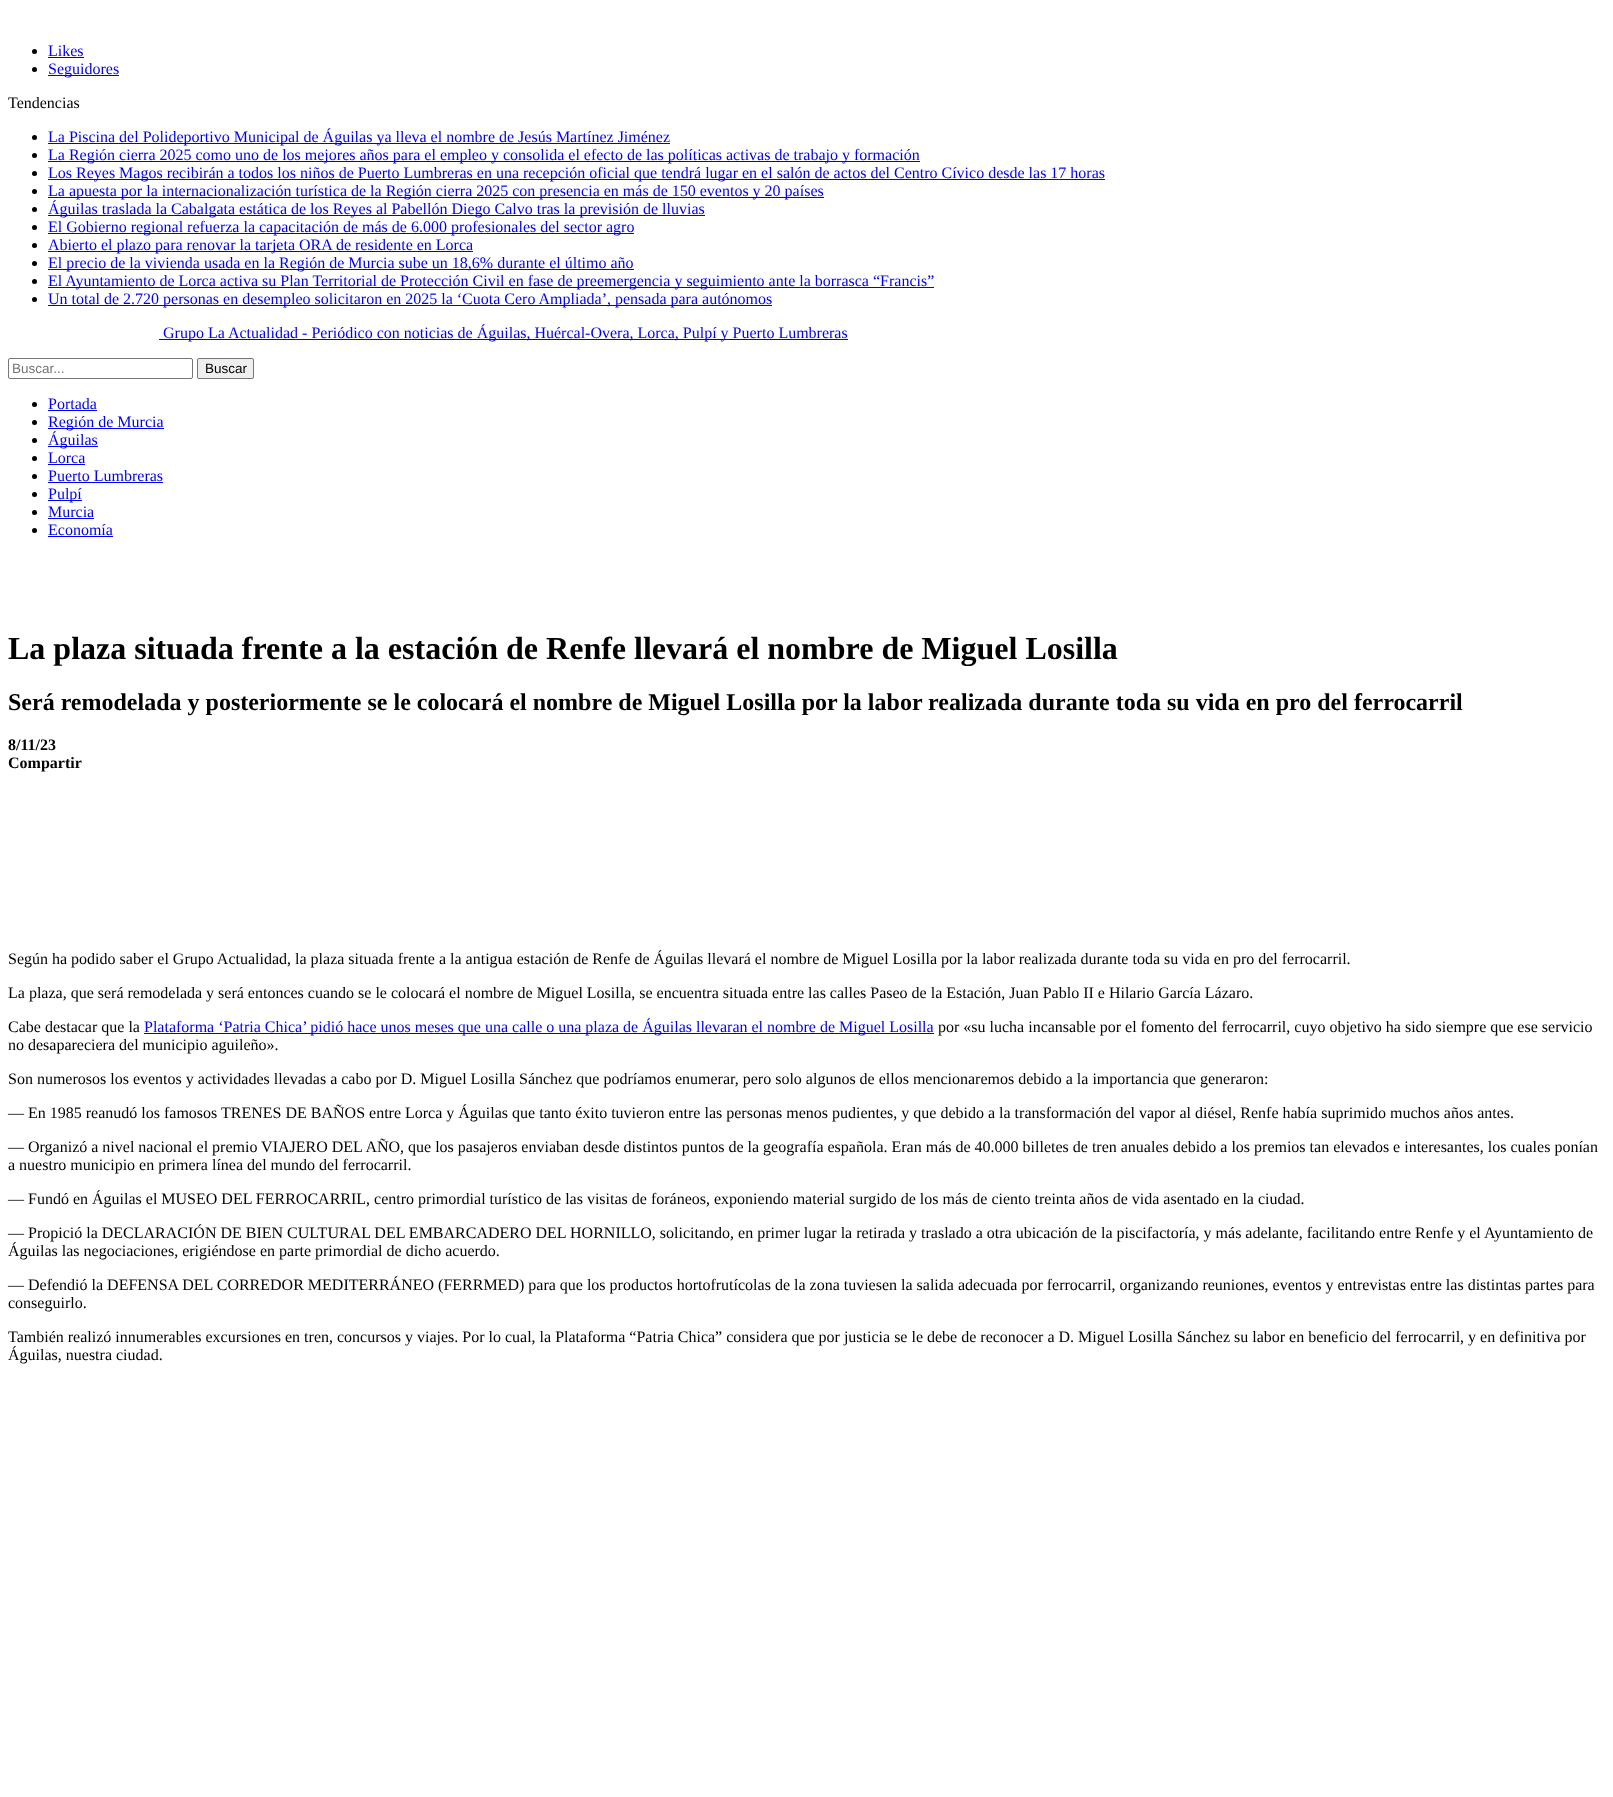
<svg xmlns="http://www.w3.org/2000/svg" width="1613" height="1797">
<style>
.a{font:16px Liberation Serif;fill:#00e}
.b{font:16px Liberation Serif;fill:#000}
.c{font:13.5px Liberation Sans;fill:#757575}
.d{font:13.5px Liberation Sans;fill:#000}
.e{font:bold 32px Liberation Serif;fill:#000}
.f{font:bold 24px Liberation Serif;fill:#000}
.g{font:bold 16px Liberation Serif;fill:#000}
</style>
<rect width="100%" height="100%" fill="#fff"/>
<circle fill="#000" cx="34.5" cy="51.5" r="2.5"/>
<path fill="#00e" d="M48 57h36v1H48z"/>
<circle fill="#000" cx="34.5" cy="69.5" r="2.5"/>
<path fill="#00e" d="M48 75h71v1H48z"/>
<circle fill="#000" cx="34.5" cy="137.5" r="2.5"/>
<path fill="#00e" d="M48 143h622v1H48z"/>
<circle fill="#000" cx="34.5" cy="155.5" r="2.5"/>
<path fill="#00e" d="M48 161h872v1H48z"/>
<circle fill="#000" cx="34.5" cy="173.5" r="2.5"/>
<path fill="#00e" d="M48 179h1057v1H48z"/>
<circle fill="#000" cx="34.5" cy="191.5" r="2.5"/>
<path fill="#00e" d="M48 197h776v1H48z"/>
<circle fill="#000" cx="34.5" cy="209.5" r="2.5"/>
<path fill="#00e" d="M48 215h657v1H48z"/>
<circle fill="#000" cx="34.5" cy="227.5" r="2.5"/>
<path fill="#00e" d="M48 233h586v1H48z"/>
<circle fill="#000" cx="34.5" cy="245.5" r="2.5"/>
<path fill="#00e" d="M48 251h425v1H48z"/>
<circle fill="#000" cx="34.5" cy="263.5" r="2.5"/>
<path fill="#00e" d="M48 269h586v1H48z"/>
<circle fill="#000" cx="34.5" cy="281.5" r="2.5"/>
<path fill="#00e" d="M48 287h886v1H48z"/>
<circle fill="#000" cx="34.5" cy="299.5" r="2.5"/>
<path fill="#00e" d="M48 305h724v1H48z"/>
<path fill="#00e" d="M159 339h689v1H159z"/>
<rect fill="none" stroke="#767676" x="8.5" y="358.5" width="184" height="20" rx="1.5"/>
<rect fill="#efefef" stroke="#767676" x="197.5" y="358.5" width="56" height="20" rx="1.5"/>
<circle fill="#000" cx="34.5" cy="404.5" r="2.5"/>
<path fill="#00e" d="M48 410h49v1H48z"/>
<circle fill="#000" cx="34.5" cy="422.5" r="2.5"/>
<path fill="#00e" d="M48 428h116v1H48z"/>
<circle fill="#000" cx="34.5" cy="440.5" r="2.5"/>
<path fill="#00e" d="M48 446h50v1H48z"/>
<circle fill="#000" cx="34.5" cy="458.5" r="2.5"/>
<path fill="#00e" d="M48 464h37v1H48z"/>
<circle fill="#000" cx="34.5" cy="476.5" r="2.5"/>
<path fill="#00e" d="M48 482h115v1H48z"/>
<circle fill="#000" cx="34.5" cy="494.5" r="2.5"/>
<path fill="#00e" d="M48 500h34v1H48z"/>
<circle fill="#000" cx="34.5" cy="512.5" r="2.5"/>
<path fill="#00e" d="M48 518h46v1H48z"/>
<circle fill="#000" cx="34.5" cy="530.5" r="2.5"/>
<path fill="#00e" d="M48 536h65v1H48z"/>
<path fill="#00e" d="M144 1033h790v1H144z"/>
<text class="a" x="48" y="56">Likes</text>
<text class="a" x="48" y="74">Seguidores</text>
<text class="b" x="8" y="108">Tendencias</text>
<text class="a" x="48" y="142">La Piscina del Polideportivo Municipal de Águilas ya lleva el nombre de Jesús Martínez Jiménez</text>
<text class="a" x="48" y="160">La Región cierra 2025 como uno de los mejores años para el empleo y consolida el efecto de las políticas activas de trabajo y formación</text>
<text class="a" x="48" y="178">Los Reyes Magos recibirán a todos los niños de Puerto Lumbreras en una recepción oficial que tendrá lugar en el salón de actos del Centro Cívico desde las 17 horas</text>
<text class="a" x="48" y="196">La apuesta por la internacionalización turística de la Región cierra 2025 con presencia en más de 150 eventos y 20 países</text>
<text class="a" x="48" y="214">Águilas traslada la Cabalgata estática de los Reyes al Pabellón Diego Calvo tras la previsión de lluvias</text>
<text class="a" x="48" y="232">El Gobierno regional refuerza la capacitación de más de 6.000 profesionales del sector agro</text>
<text class="a" x="48" y="250">Abierto el plazo para renovar la tarjeta ORA de residente en Lorca</text>
<text class="a" x="48" y="268">El precio de la vivienda usada en la Región de Murcia sube un 18,6% durante el último año</text>
<text class="a" x="48" y="286">El Ayuntamiento de Lorca activa su Plan Territorial de Protección Civil en fase de preemergencia y seguimiento ante la borrasca “Francis”</text>
<text class="a" x="48" y="304">Un total de 2.720 personas en desempleo solicitaron en 2025 la ‘Cuota Cero Ampliada’, pensada para autónomos</text>
<text class="a" x="163" y="338">Grupo La Actualidad - Periódico con noticias de Águilas, Huércal-Overa, Lorca, Pulpí y Puerto Lumbreras</text>
<text class="c" x="12" y="373">Buscar...</text>
<text class="d" x="205" y="373">Buscar</text>
<text class="a" x="48" y="409">Portada</text>
<text class="a" x="48" y="427">Región de Murcia</text>
<text class="a" x="48" y="445">Águilas</text>
<text class="a" x="48" y="463">Lorca</text>
<text class="a" x="48" y="481">Puerto Lumbreras</text>
<text class="a" x="48" y="499">Pulpí</text>
<text class="a" x="48" y="517">Murcia</text>
<text class="a" x="48" y="535">Economía</text>
<text class="e" x="8" y="659">La plaza situada frente a la estación de Renfe llevará el nombre de Miguel Losilla</text>
<text class="f" x="8" y="710">Será remodelada y posteriormente se le colocará el nombre de Miguel Losilla por la labor realizada durante toda su vida en pro del ferrocarril</text>
<text class="g" x="8" y="750">8/11/23</text>
<text class="g" x="8" y="768">Compartir</text>
<text class="b" x="8" y="964">Según ha podido saber el Grupo Actualidad, la plaza situada frente a la antigua estación de Renfe de Águilas llevará el nombre de Miguel Losilla por la labor realizada durante toda su vida en pro del ferrocarril.</text>
<text class="b" x="8" y="998">La plaza, que será remodelada y será entonces cuando se le colocará el nombre de Miguel Losilla, se encuentra situada entre las calles Paseo de la Estación, Juan Pablo II e Hilario García Lázaro.</text>
<text class="b" x="8" y="1032">Cabe destacar que la</text>
<text class="a" x="144" y="1032">Plataforma ‘Patria Chica’ pidió hace unos meses que una calle o una plaza de Águilas llevaran el nombre de Miguel Losilla</text>
<text class="b" x="938" y="1032">por «su lucha incansable por el fomento del ferrocarril, cuyo objetivo ha sido siempre que ese servicio</text>
<text class="b" x="8" y="1050">no desapareciera del municipio aguileño».</text>
<text class="b" x="8" y="1084">Son numerosos los eventos y actividades llevadas a cabo por D. Miguel Losilla Sánchez que podríamos enumerar, pero solo algunos de ellos mencionaremos debido a la importancia que generaron:</text>
<text class="b" x="8" y="1118">— En 1985 reanudó los famosos TRENES DE BAÑOS entre Lorca y Águilas que tanto éxito tuvieron entre las personas menos pudientes, y que debido a la transformación del vapor al diésel, Renfe había suprimido muchos años antes.</text>
<text class="b" x="8" y="1152">— Organizó a nivel nacional el premio VIAJERO DEL AÑO, que los pasajeros enviaban desde distintos puntos de la geografía española. Eran más de 40.000 billetes de tren anuales debido a los premios tan elevados e interesantes, los cuales ponían</text>
<text class="b" x="8" y="1170">a nuestro municipio en primera línea del mundo del ferrocarril.</text>
<text class="b" x="8" y="1204">— Fundó en Águilas el MUSEO DEL FERROCARRIL, centro primordial turístico de las visitas de foráneos, exponiendo material surgido de los más de ciento treinta años de vida asentado en la ciudad.</text>
<text class="b" x="8" y="1238">— Propició la DECLARACIÓN DE BIEN CULTURAL DEL EMBARCADERO DEL HORNILLO, solicitando, en primer lugar la retirada y traslado a otra ubicación de la piscifactoría, y más adelante, facilitando entre Renfe y el Ayuntamiento de</text>
<text class="b" x="8" y="1256">Águilas las negociaciones, erigiéndose en parte primordial de dicho acuerdo.</text>
<text class="b" x="8" y="1290">— Defendió la DEFENSA DEL CORREDOR MEDITERRÁNEO (FERRMED) para que los productos hortofrutícolas de la zona tuviesen la salida adecuada por ferrocarril, organizando reuniones, eventos y entrevistas entre las distintas partes para</text>
<text class="b" x="8" y="1308">conseguirlo.</text>
<text class="b" x="8" y="1342">También realizó innumerables excursiones en tren, concursos y viajes. Por lo cual, la Plataforma “Patria Chica” considera que por justicia se le debe de reconocer a D. Miguel Losilla Sánchez su labor en beneficio del ferrocarril, y en definitiva por</text>
<text class="b" x="8" y="1360">Águilas, nuestra ciudad.</text>
</svg>
